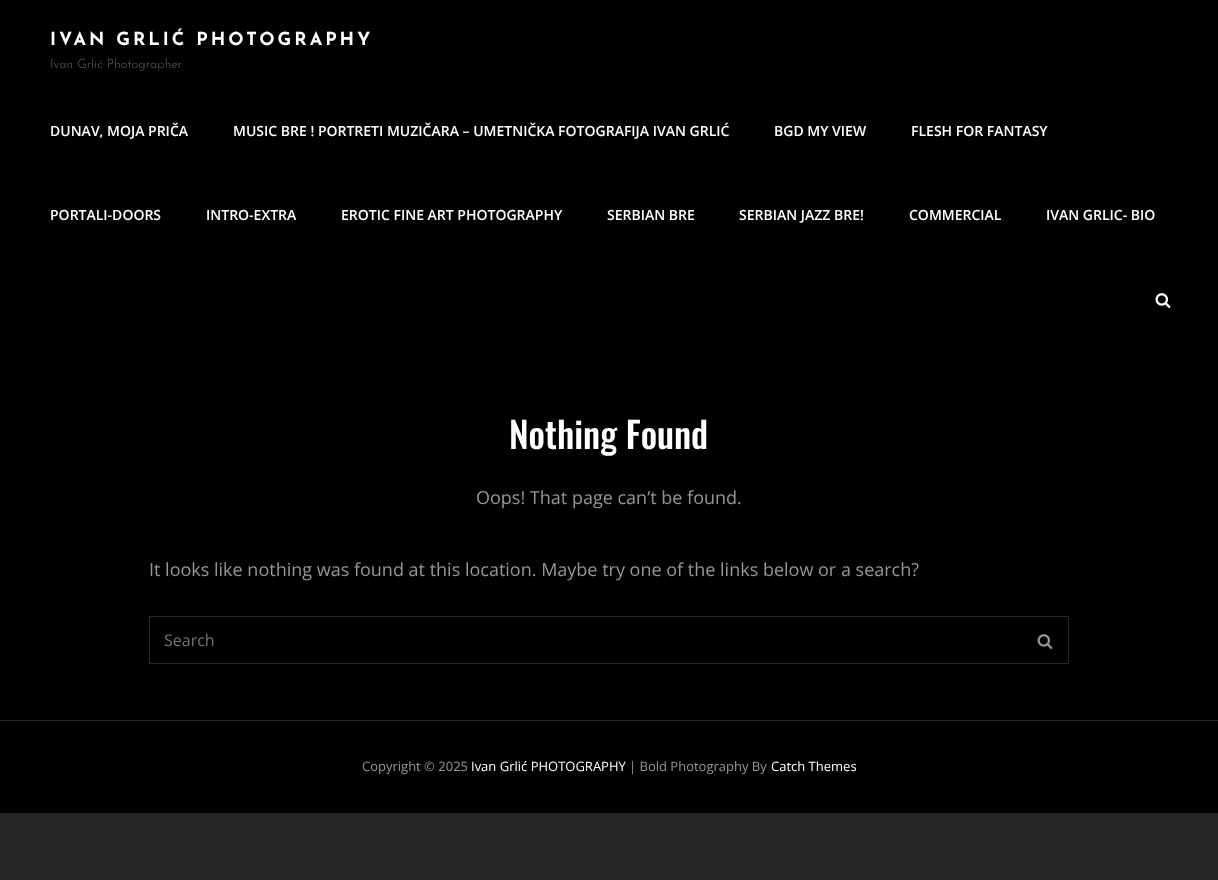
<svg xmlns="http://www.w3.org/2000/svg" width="1218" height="880">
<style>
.a{font:bold 18px Josefin Sans;letter-spacing:3px;fill:#fff}
.b{font:300 13px Josefin Sans;fill:#666}
.c{font:600 14px Open Sans;fill:#fff}
.d{font:500 36px Oswald;fill:#fff}
.e{font:18px Open Sans;fill:#969696}
.f{font:16px Open Sans;fill:#757575}
.g{font:13px Open Sans;fill:#969696}
.h{font:13px Open Sans;fill:#fff}
</style>
<rect width="100%" height="100%" fill="#262626"/>
<path fill="#000" d="M0 0h1218v813H0z"/>
<image href="1.png" x="1155" y="293" width="16" height="15"/>
<path fill="none" stroke="#282828" d="M149.5 616.5h919v47H149.5z"/>
<image href="2.png" x="1037" y="634" width="16" height="15"/>
<path fill="#282828" d="M0 720h1218v1H0z"/>
<text class="a" x="50" y="45">IVAN GRLIĆ PHOTOGRAPHY</text>
<text class="b" x="50" y="68">Ivan Grlić Photographer</text>
<text class="c" x="50" y="136">DUNAV, MOJA PRIČA</text>
<text class="c" x="233" y="136">MUSIC BRE ! PORTRETI MUZIČARA – UMETNIČKA FOTOGRAFIJA IVAN GRLIĆ</text>
<text class="c" x="774" y="136">BGD MY VIEW</text>
<text class="c" x="911" y="136">FLESH FOR FANTASY</text>
<text class="c" x="50" y="220">PORTALI-DOORS</text>
<text class="c" x="206" y="220">INTRO-EXTRA</text>
<text class="c" x="341" y="220">EROTIC FINE ART PHOTOGRAPHY</text>
<text class="c" x="607" y="220">SERBIAN BRE</text>
<text class="c" x="739" y="220">SERBIAN JAZZ BRE!</text>
<text class="c" x="909" y="220">COMMERCIAL</text>
<text class="c" x="1046" y="220">IVAN GRLIC- BIO</text>
<text class="d" x="509" y="449">Nothing Found</text>
<text class="e" x="476" y="504">Oops! That page can’t be found.</text>
<text class="e" x="149" y="576">It looks like nothing was found at this location. Maybe try one of the links below or a search?</text>
<text class="f" x="164" y="646">Search</text>
<text class="g" x="362" y="771">Copyright © 2025</text>
<text class="h" x="471" y="771">Ivan Grlić PHOTOGRAPHY</text>
<text class="g" x="629" y="771">| Bold Photography By</text>
<text class="h" x="771" y="771">Catch Themes</text>
</svg>
